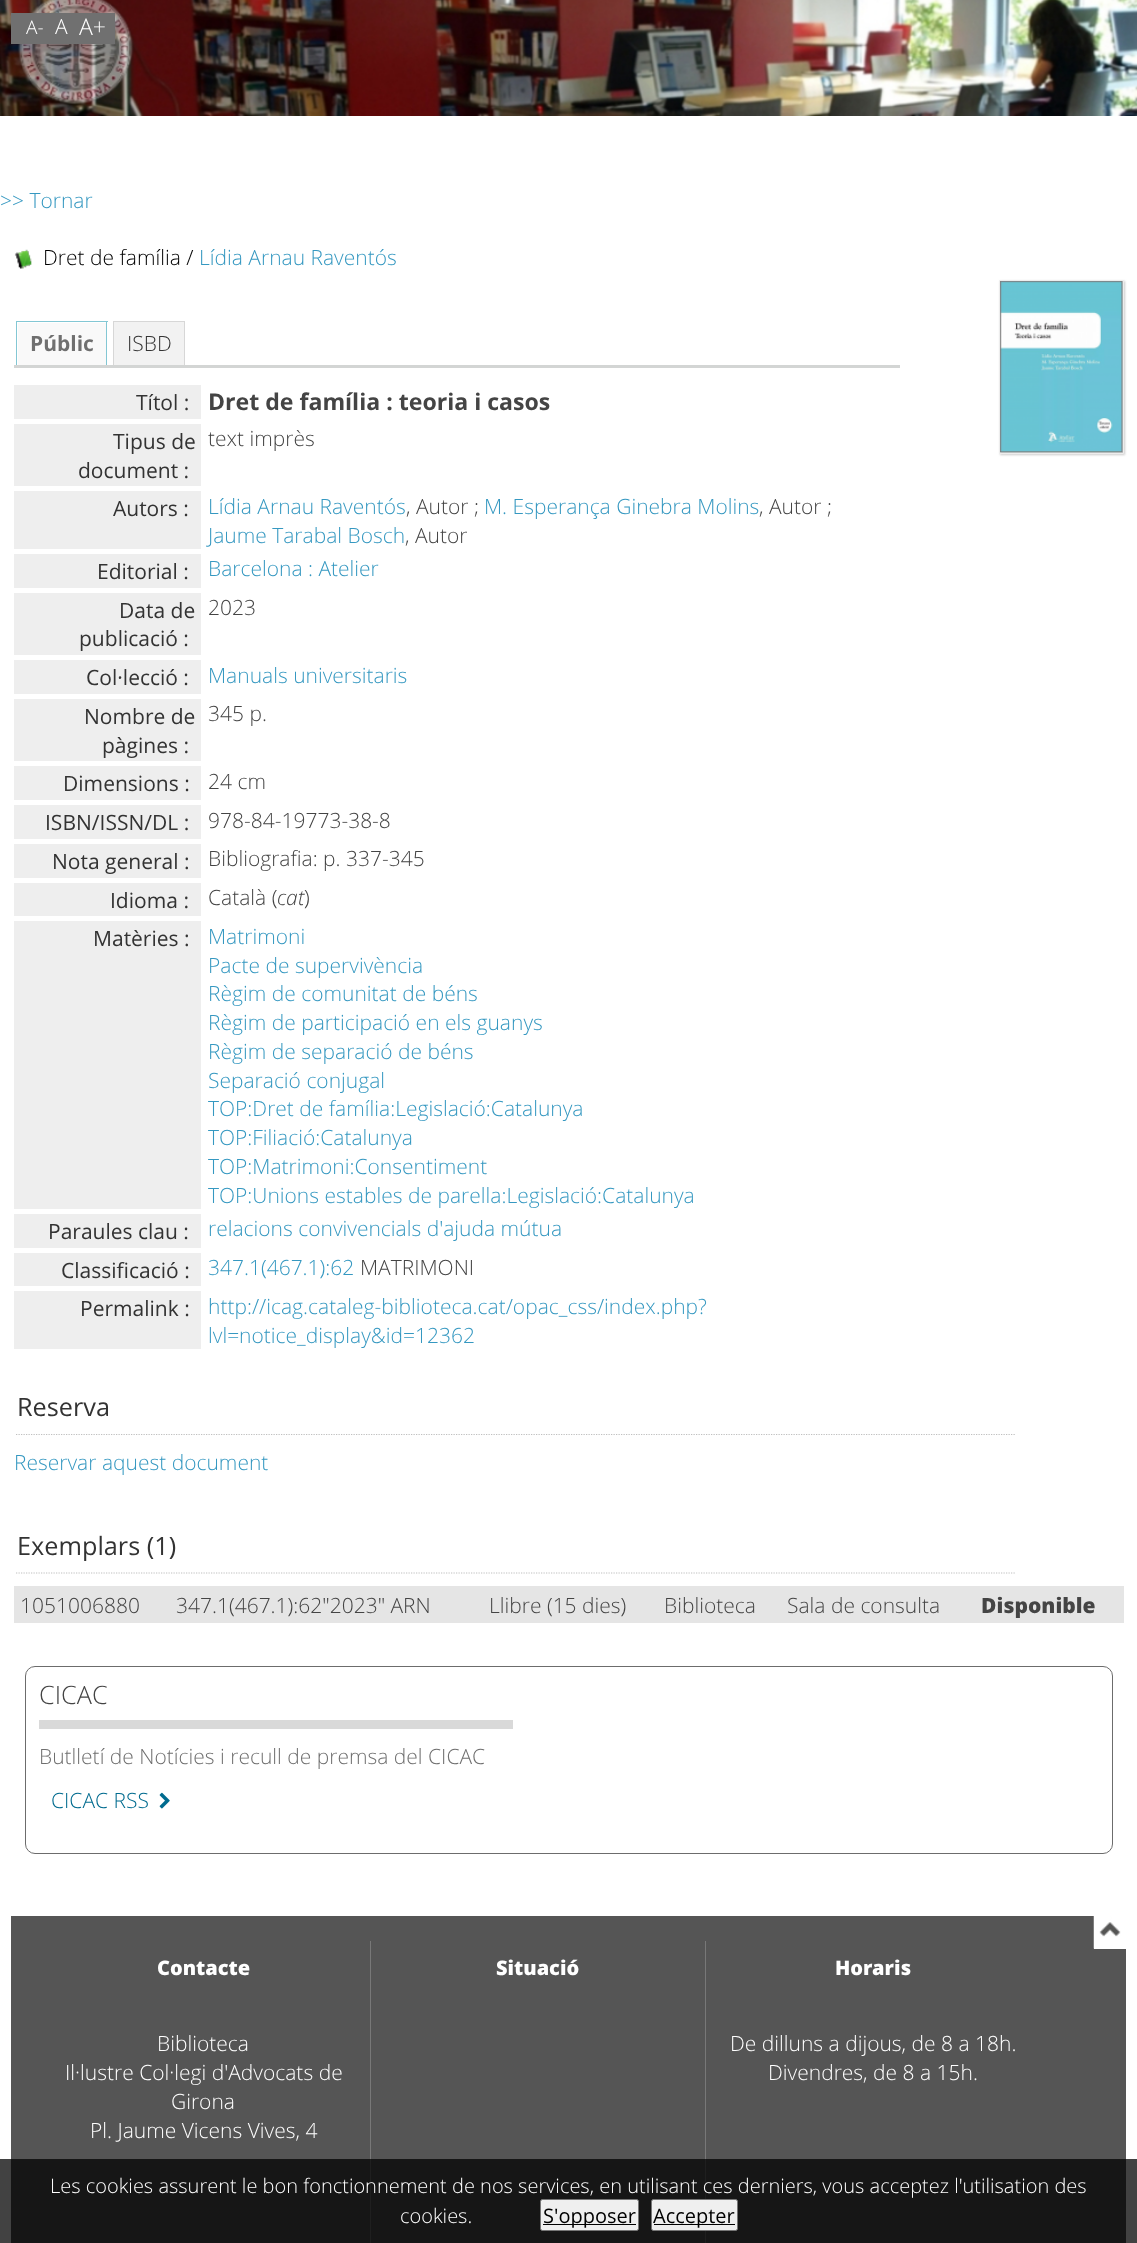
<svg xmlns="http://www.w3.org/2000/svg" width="1137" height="2243">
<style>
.a{font:300 19px Open Sans;fill:#fff}
.b{font:300 21px Open Sans;fill:#fff}
.c{font:300 23.1px Open Sans;fill:#fff}
.d{font:800 20px Open Sans;fill:#fff}
.e{font:300 21px Open Sans;fill:#3598c1}
.f{font:300 21px Open Sans;fill:#000}
.g{font:bold 21px Open Sans;fill:#6f6f6f}
.h{font:300 21px Open Sans;fill:#333}
.i{font:21px Open Sans;fill:#333}
.j{font:bold 23.1px Open Sans;fill:#444}
.k{font:300 21px Open Sans;fill:#444}
.l{font:italic 300 21px Open Sans;fill:#444}
.m{font:25.25px Open Sans;fill:#333}
.n{font:800 21px Open Sans;fill:#444}
.o{font:300 25.25px Open Sans;fill:#444}
.p{font:300 21px Open Sans;fill:#6f6f6f}
.q{font:300 21px Open Sans;fill:#006b8f}
.r{font:300 20px Open Sans;fill:#fff}
.s{font:20px Open Sans;fill:#000}
</style>
<rect width="100%" height="100%" fill="#fff"/>
<image href="1.png" x="0" y="0" width="1137" height="116"/>
<path fill="#555" d="M11 1916h1115v327H11z"/>
<path fill="#707070" d="M11 13h104v31H11z"/>
<path fill="#fff" d="M1094 1916h32v33H1094z"/>
<image href="2.png" x="1093" y="1916" width="28" height="33"/>
<path fill="#787878" d="M705 1941h1v302H705z"/>
<path fill="#787878" d="M370 1941h1v302H370z"/>
<image href="3.png" x="14" y="249" width="18" height="20"/>
<path fill="#d3d5d4" d="M14 365h886v3H14z"/>
<path fill="#f9f9f9" d="M18 323h88v42H18z"/>
<path fill="#83c7d4" d="M16 321h92v1H16z"/>
<path fill="#83c7d4" d="M106 321h1v44H106z"/>
<path fill="#83c7d4" d="M16 321h1v44H16z"/>
<path fill="#f2f2f2" d="M114 322h70v43H114z"/>
<path fill="#d7d7d7" d="M113 321h72v1H113z"/>
<path fill="#d7d7d7" d="M184 321h1v44H184z"/>
<path fill="#d7d7d7" d="M113 321h1v44H113z"/>
<path fill="#eee" d="M14 385h187v34H14z"/>
<path fill="#eee" d="M14 424h187v62H14z"/>
<path fill="#eee" d="M14 491h187v58H14z"/>
<path fill="#eee" d="M14 554h187v34H14z"/>
<path fill="#eee" d="M14 593h187v62H14z"/>
<path fill="#eee" d="M14 660h187v34H14z"/>
<path fill="#eee" d="M14 699h187v62H14z"/>
<path fill="#eee" d="M14 766h187v34H14z"/>
<path fill="#eee" d="M14 805h187v34H14z"/>
<path fill="#eee" d="M14 844h187v34H14z"/>
<path fill="#eee" d="M14 883h187v33H14z"/>
<path fill="#eee" d="M14 921h187v288H14z"/>
<path fill="#eee" d="M14 1214h187v34H14z"/>
<path fill="#eee" d="M14 1253h187v33H14z"/>
<path fill="#eee" d="M14 1291h187v58H14z"/>
<path fill="#ccc" filter="blur(1px)" d="M1000 281h125v174H1000z"/>
<path fill="none" stroke="#ededed" d="M999.5 280.5h124v173H999.5z"/>
<image href="4.png" x="1000" y="281" width="123" height="172"/>
<path fill="none" stroke="#bfbfbf" stroke-width="1.2" stroke-dasharray="1.25 1.25" d="M16 1434.5h999"/>
<path fill="none" stroke="#bfbfbf" stroke-width="1.2" stroke-dasharray="1.25 1.25" d="M16 1573h999"/>
<path fill="#e5e5e5" d="M14 1586h1110v37H14z"/>
<rect fill="none" stroke="#6c6c6c" x="25.5" y="1666.5" width="1087" height="187" rx="9.5"/>
<path fill="#d9d9d9" d="M39 1720h474v9H39z"/>
<image href="5.png" x="159" y="1792" width="11" height="17"/>
<path fill="#000000bd" d="M0 2159h1137v84H0z"/>
<rect fill="#efefef" stroke="#767676" x="540.5" y="2199.5" width="98" height="31" rx="2"/>
<path fill="#000" d="M543 2224h93v1H543z"/>
<rect fill="#efefef" stroke="#767676" x="651.5" y="2199.5" width="86" height="31" rx="2"/>
<path fill="#000" d="M654 2224h81v1H654z"/>
<text class="a" x="26" y="34">A-</text>
<text class="b" x="55" y="34">A</text>
<text class="c" x="79" y="35">A+</text>
<text class="d" x="157" y="1975">Contacte</text>
<text class="b" x="157" y="2051">Biblioteca</text>
<text class="b" x="65" y="2080">Il·lustre Col·legi d'Advocats de</text>
<text class="b" x="171" y="2109">Girona</text>
<text class="b" x="90" y="2138">Pl. Jaume Vicens Vives, 4</text>
<text class="d" x="496" y="1975">Situació</text>
<text class="d" x="835" y="1975">Horaris</text>
<text class="b" x="730" y="2051">De dilluns a dijous, de 8 a 18h.</text>
<text class="b" x="768" y="2080">Divendres, de 8 a 15h.</text>
<text class="e" x="0" y="208">&gt;&gt; Tornar</text>
<text class="f" x="43" y="265">Dret de família /</text>
<text class="e" x="199" y="265">Lídia Arnau Raventós</text>
<text class="g" x="30" y="351">Públic</text>
<text class="h" x="127" y="351">ISBD</text>
<text class="i" x="136" y="410">Títol :</text>
<text class="j" x="208" y="410">Dret de família : teoria i casos</text>
<text class="i" x="113" y="449">Tipus de</text>
<text class="i" x="78" y="478">document :</text>
<text class="k" x="208" y="446">text imprès</text>
<text class="i" x="113" y="516">Autors :</text>
<text class="e" x="208" y="514">Lídia Arnau Raventós</text>
<text class="k" x="406" y="514">, Autor ;</text>
<text class="e" x="484" y="514">M. Esperança Ginebra Molins</text>
<text class="k" x="759" y="514">, Autor ;</text>
<text class="e" x="208" y="543">Jaume Tarabal Bosch</text>
<text class="k" x="405" y="543">, Autor</text>
<text class="i" x="97" y="579">Editorial :</text>
<text class="e" x="208" y="576">Barcelona : Atelier</text>
<text class="i" x="119" y="618">Data de</text>
<text class="i" x="79" y="646">publicació :</text>
<text class="k" x="208" y="615">2023</text>
<text class="i" x="86" y="685">Col·lecció :</text>
<text class="e" x="208" y="683">Manuals universitaris</text>
<text class="i" x="84" y="724">Nombre de</text>
<text class="i" x="102" y="753">pàgines :</text>
<text class="k" x="208" y="721">345 p.</text>
<text class="i" x="63" y="791">Dimensions :</text>
<text class="k" x="208" y="789">24 cm</text>
<text class="i" x="45" y="830">ISBN/ISSN/DL :</text>
<text class="k" x="208" y="828">978-84-19773-38-8</text>
<text class="i" x="52" y="869">Nota general :</text>
<text class="k" x="208" y="866">Bibliografia: p. 337-345</text>
<text class="i" x="110" y="908">Idioma :</text>
<text class="k" x="208" y="905">Català (</text>
<text class="l" x="277" y="905">cat</text>
<text class="k" x="304" y="905">)</text>
<text class="i" x="93" y="946">Matèries :</text>
<text class="e" x="208" y="944">Matrimoni</text>
<text class="e" x="208" y="973">Pacte de supervivència</text>
<text class="e" x="208" y="1001">Règim de comunitat de béns</text>
<text class="e" x="208" y="1030">Règim de participació en els guanys</text>
<text class="e" x="208" y="1059">Règim de separació de béns</text>
<text class="e" x="208" y="1088">Separació conjugal</text>
<text class="e" x="208" y="1116">TOP:Dret de família:Legislació:Catalunya</text>
<text class="e" x="208" y="1145">TOP:Filiació:Catalunya</text>
<text class="e" x="208" y="1174">TOP:Matrimoni:Consentiment</text>
<text class="e" x="208" y="1203">TOP:Unions estables de parella:Legislació:Catalunya</text>
<text class="i" x="48" y="1239">Paraules clau :</text>
<text class="e" x="208" y="1236">relacions convivencials d'ajuda mútua</text>
<text class="i" x="61" y="1278">Classificació :</text>
<text class="e" x="208" y="1275">347.1(467.1):62</text>
<text class="k" x="360" y="1275">MATRIMONI</text>
<text class="i" x="80" y="1316">Permalink :</text>
<text class="e" x="208" y="1314">http://icag.cataleg-biblioteca.cat/opac_css/index.php?</text>
<text class="e" x="208" y="1343">lvl=notice_display&amp;id=12362</text>
<text class="m" x="17" y="1416">Reserva</text>
<text class="e" x="14" y="1470">Reservar aquest document</text>
<text class="m" x="17" y="1555">Exemplars (1)</text>
<text class="k" x="20" y="1613">1051006880</text>
<text class="k" x="176" y="1613">347.1(467.1):62"2023" ARN</text>
<text class="k" x="489" y="1613">Llibre (15 dies)</text>
<text class="k" x="664" y="1613">Biblioteca</text>
<text class="k" x="787" y="1613">Sala de consulta</text>
<text class="n" x="981" y="1613">Disponible</text>
<text class="o" x="39" y="1704">CICAC</text>
<text class="p" x="39" y="1764">Butlletí de Notícies i recull de premsa del CICAC</text>
<text class="q" x="51" y="1808">CICAC RSS</text>
<text class="r" x="50" y="2193">Les cookies assurent le bon fonctionnement de nos services, en utilisant ces derniers, vous acceptez l'utilisation des</text>
<text class="r" x="400" y="2223">cookies.</text>
<text class="s" x="543" y="2223">S'opposer</text>
<text class="s" x="653" y="2223">Accepter</text>
</svg>
